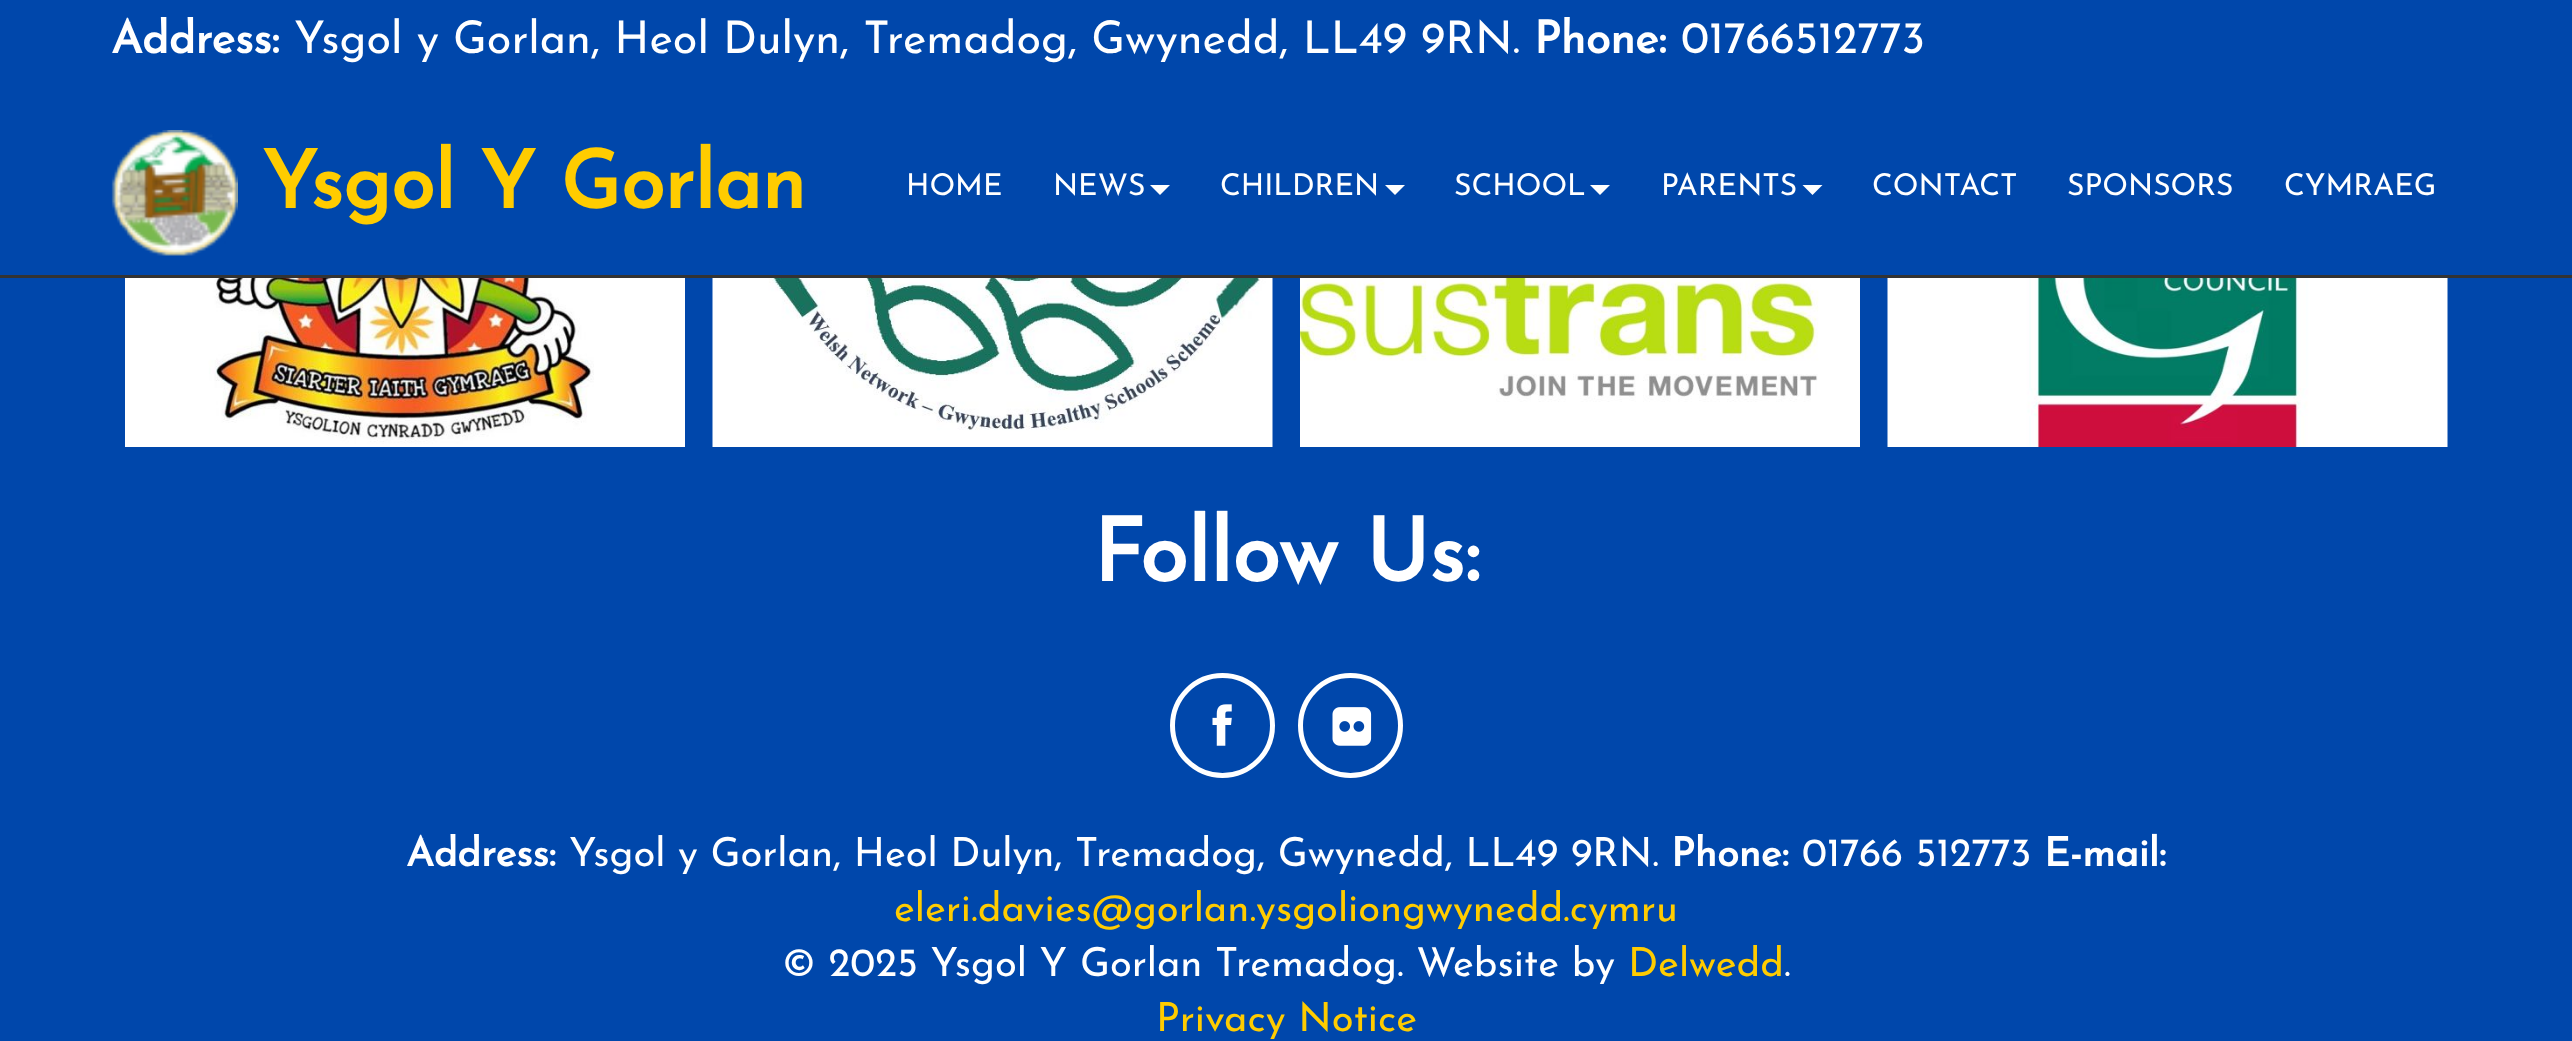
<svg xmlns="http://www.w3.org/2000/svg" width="2572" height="1041">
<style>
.a{font:bold 45px Josefin Sans;fill:#fff}
.b{font:100 45px Josefin Sans;fill:#fff}
.c{font:bold 80px Josefin Sans;fill:#fc0}
.d{font:100 30px Josefin Sans;fill:#fff}
.e{font:bold 87.5px Josefin Sans;fill:#fff}
.f{font:bold 40px Josefin Sans;fill:#fff}
.g{font:100 40px Josefin Sans;fill:#fff}
.h{font:100 40px Josefin Sans;fill:#fc0}
</style>
<rect width="100%" height="100%" fill="#0047ab"/>
<path fill="#333" d="M0 275h2572v3H0z"/>
<image href="1.png" x="111" y="130" width="127" height="126"/>
<path fill="#fff" d="M1150 185h20l-10 10z"/>
<path fill="#fff" d="M1385 185h20l-10 10z"/>
<path fill="#fff" d="M1590 185h20l-10 10z"/>
<path fill="#fff" d="M1802.5 185h20l-10 10z"/>
<image href="2.png" x="125" y="278" width="560" height="169"/>
<image href="3.png" x="712" y="278" width="561" height="169"/>
<image href="4.png" x="1300" y="278" width="560" height="169"/>
<image href="5.png" x="1887" y="278" width="561" height="169"/>
<circle fill="none" stroke="#fff" stroke-width="5" cx="1222.5" cy="725.5" r="50"/>
<image href="6.png" x="1212" y="704" width="20" height="42"/>
<circle fill="none" stroke="#fff" stroke-width="5" cx="1350.5" cy="725.5" r="50"/>
<image href="7.png" x="1332" y="707" width="40" height="39"/>
<text class="a" x="111" y="53">Address:</text>
<text class="b" x="294" y="53">Ysgol y Gorlan, Heol Dulyn, Tremadog, Gwynedd, LL49 9RN.</text>
<text class="a" x="1534" y="53">Phone:</text>
<text class="b" x="1681" y="53">01766512773</text>
<text class="c" x="262" y="208">Ysgol Y Gorlan</text>
<text class="d" x="906" y="195">HOME</text>
<text class="d" x="1053" y="195">NEWS</text>
<text class="d" x="1220" y="195">CHILDREN</text>
<text class="d" x="1454" y="195">SCHOOL</text>
<text class="d" x="1661" y="195">PARENTS</text>
<text class="d" x="1872" y="195">CONTACT</text>
<text class="d" x="2067" y="195">SPONSORS</text>
<text class="d" x="2284" y="195">CYMRAEG</text>
<text class="e" x="1093" y="581">Follow Us:</text>
<text class="f" x="406" y="866">Address:</text>
<text class="g" x="569" y="866">Ysgol y Gorlan, Heol Dulyn, Tremadog, Gwynedd, LL49 9RN.</text>
<text class="f" x="1671" y="866">Phone:</text>
<text class="g" x="1802" y="866">01766 512773</text>
<text class="f" x="2044" y="866">E-mail:</text>
<text class="h" x="894" y="921">eleri.davies@gorlan.ysgoliongwynedd.cymru</text>
<text class="g" x="782" y="976">© 2025 Ysgol Y Gorlan Tremadog. Website by</text>
<text class="h" x="1628" y="976">Delwedd</text>
<text class="g" x="1784" y="976">.</text>
<text class="h" x="1156" y="1031">Privacy Notice</text>
</svg>
